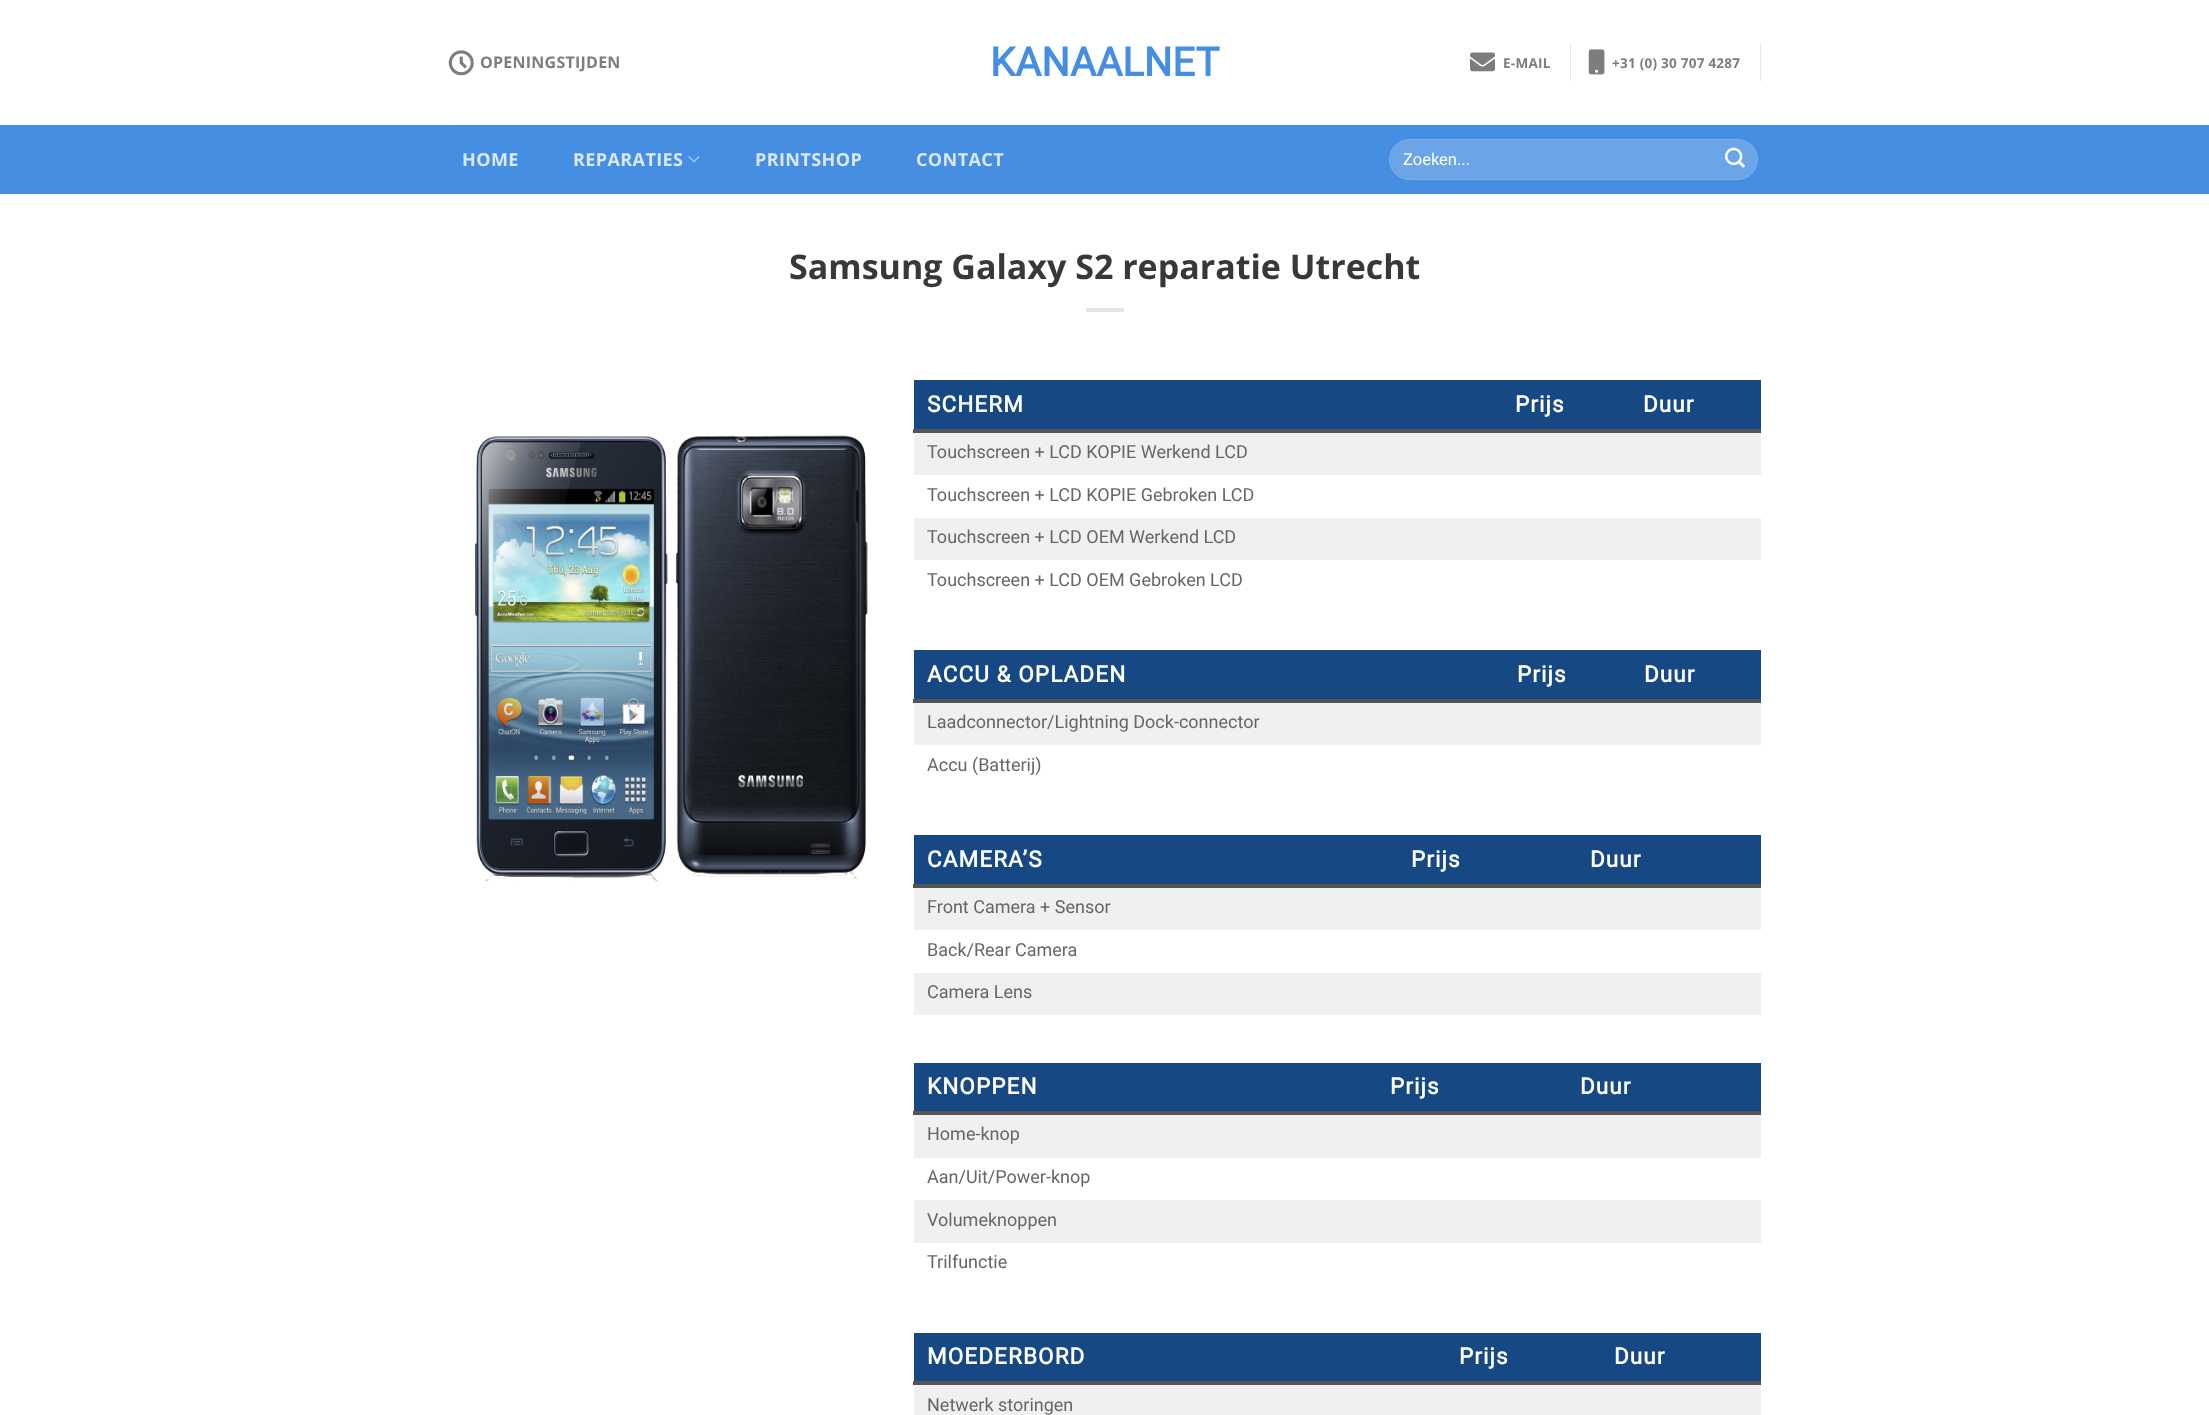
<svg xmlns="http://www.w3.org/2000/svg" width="2209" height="1415">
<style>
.a{font:bold 16px Open Sans;letter-spacing:0.25px;fill:#7d7d7d}
.b{font:bold 40px Roboto;fill:#468ee1}
.c{font:bold 13.5px Open Sans;letter-spacing:0.25px;fill:#7d7d7d}
.d{font:bold 18px Open Sans;letter-spacing:0.4px;fill:#dae8f9}
.e{font:16.5px Roboto;fill:#fff}
.f{font:bold 34px Open Sans;fill:#383838}
.g{font:bold 22.5px Roboto;letter-spacing:1.1px;fill:#fff}
.h{font:18px Roboto;fill:#666}
</style>
<rect width="100%" height="100%" fill="#fff"/>
<image href="1.png" x="448" y="50" width="26" height="26"/>
<image href="2.png" x="1470" y="52" width="25" height="20"/>
<path fill="#e6e6e6" d="M1570 44h1v37H1570z"/>
<image href="3.png" x="1588" y="49" width="17" height="26"/>
<path fill="#e6e6e6" d="M1760 44h1v37H1760z"/>
<path fill="#468ee1" d="M0 125h2209v69H0z"/>
<path fill="#4888d3" d="M449 125h1312v1H449z"/>
<image href="4.png" x="688" y="156" width="12" height="7"/>
<rect fill="#6ba5e7" x="1389" y="139" width="369" height="41" rx="20.5"/>
<rect fill="none" stroke="#ffffff17" x="1389.5" y="139.5" width="368" height="40" rx="20"/>
<image href="5.png" x="1725" y="147" width="20" height="21"/>
<path fill="#e6e6e6" d="M1086 308h38v4H1086z"/>
<image href="6.png" x="475" y="435" width="393" height="453"/>
<path fill="#555" d="M913 429h848v4H913z"/>
<path fill="#164883" d="M914 380h847v49H914z"/>
<path fill="#f0f0f0" d="M914 433h847v42H914z"/>
<path fill="#f0f0f0" d="M914 518h847v42H914z"/>
<path fill="#555" d="M913 699h848v4H913z"/>
<path fill="#164883" d="M914 650h847v49H914z"/>
<path fill="#f0f0f0" d="M914 703h847v42H914z"/>
<path fill="#555" d="M913 884h848v4H913z"/>
<path fill="#164883" d="M914 835h847v49H914z"/>
<path fill="#f0f0f0" d="M914 888h847v42H914z"/>
<path fill="#f0f0f0" d="M914 973h847v42H914z"/>
<path fill="#555" d="M913 1111h848v4H913z"/>
<path fill="#164883" d="M914 1063h847v48H914z"/>
<path fill="#f0f0f0" d="M914 1115h847v43H914z"/>
<path fill="#f0f0f0" d="M914 1200h847v43H914z"/>
<path fill="#555" d="M913 1381h848v4H913z"/>
<path fill="#164883" d="M914 1333h847v48H914z"/>
<path fill="#f0f0f0" d="M914 1385h847v30H914z"/>
<text class="a" x="480" y="68">OPENINGSTIJDEN</text>
<text class="b" x="990" y="76">KANAALNET</text>
<text class="c" x="1503" y="68">E-MAIL</text>
<text class="c" x="1612" y="68">+31 (0) 30 707 4287</text>
<text class="d" x="462" y="166">HOME</text>
<text class="d" x="573" y="166">REPARATIES</text>
<text class="d" x="755" y="166">PRINTSHOP</text>
<text class="d" x="916" y="166">CONTACT</text>
<text class="e" x="1403" y="165">Zoeken...</text>
<text class="f" x="789" y="279">Samsung Galaxy S2 reparatie Utrecht</text>
<text class="g" x="927" y="412">SCHERM</text>
<text class="g" x="1515" y="412">Prijs</text>
<text class="g" x="1643" y="412">Duur</text>
<text class="h" x="927" y="458">Touchscreen + LCD KOPIE Werkend LCD</text>
<text class="h" x="927" y="501">Touchscreen + LCD KOPIE Gebroken LCD</text>
<text class="h" x="927" y="543">Touchscreen + LCD OEM Werkend LCD</text>
<text class="h" x="927" y="586">Touchscreen + LCD OEM Gebroken LCD</text>
<text class="g" x="927" y="682">ACCU &amp; OPLADEN</text>
<text class="g" x="1517" y="682">Prijs</text>
<text class="g" x="1644" y="682">Duur</text>
<text class="h" x="927" y="728">Laadconnector/Lightning Dock-connector</text>
<text class="h" x="927" y="771">Accu (Batterij)</text>
<text class="g" x="927" y="867">CAMERA’S</text>
<text class="g" x="1411" y="867">Prijs</text>
<text class="g" x="1590" y="867">Duur</text>
<text class="h" x="927" y="913">Front Camera + Sensor</text>
<text class="h" x="927" y="956">Back/Rear Camera</text>
<text class="h" x="927" y="998">Camera Lens</text>
<text class="g" x="927" y="1094">KNOPPEN</text>
<text class="g" x="1390" y="1094">Prijs</text>
<text class="g" x="1580" y="1094">Duur</text>
<text class="h" x="927" y="1140">Home-knop</text>
<text class="h" x="927" y="1183">Aan/Uit/Power-knop</text>
<text class="h" x="927" y="1226">Volumeknoppen</text>
<text class="h" x="927" y="1268">Trilfunctie</text>
<text class="g" x="927" y="1364">MOEDERBORD</text>
<text class="g" x="1459" y="1364">Prijs</text>
<text class="g" x="1614" y="1364">Duur</text>
<text class="h" x="927" y="1411">Netwerk storingen</text>
</svg>
